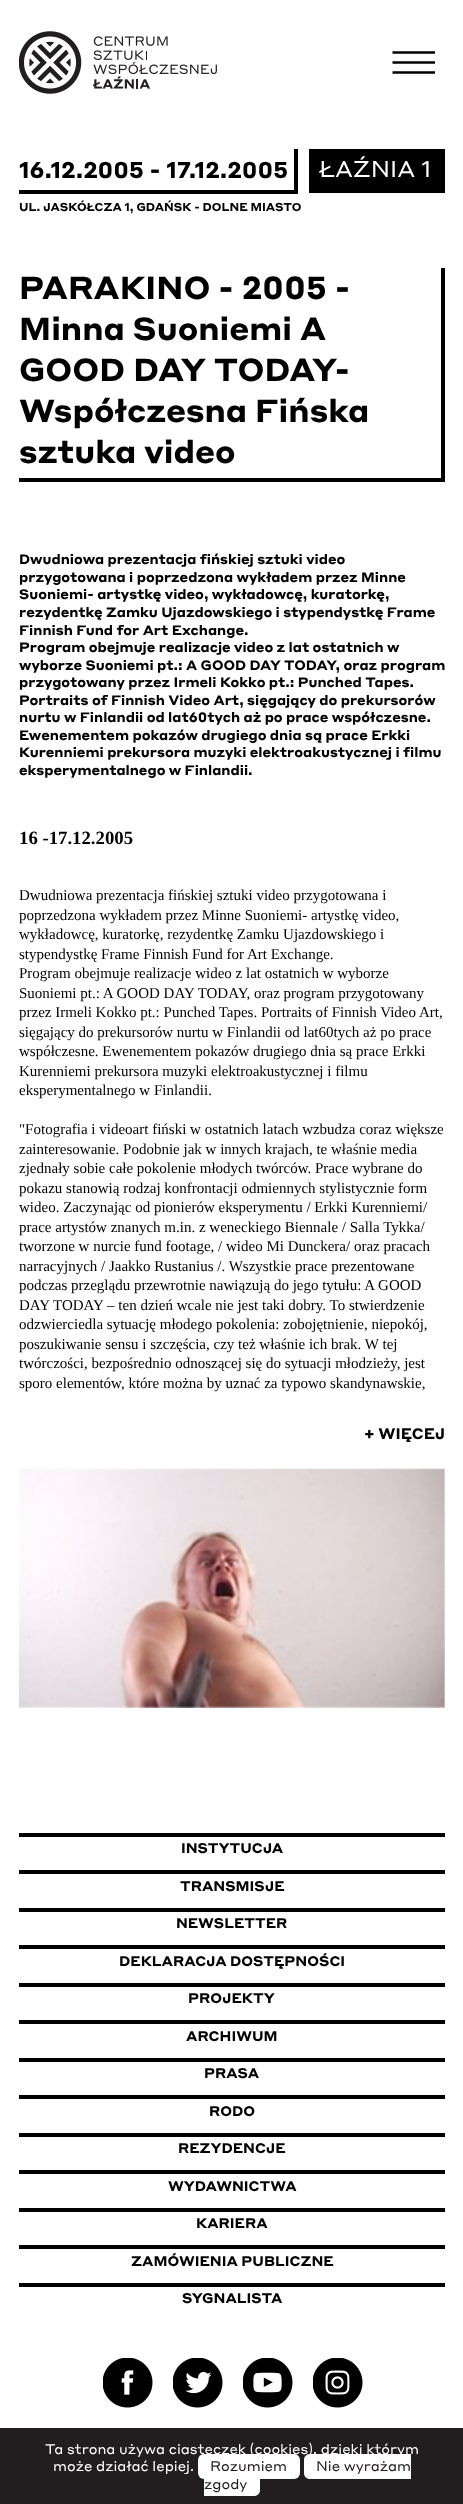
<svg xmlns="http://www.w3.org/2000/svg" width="463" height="2504">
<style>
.a{font:bold 22.5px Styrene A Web;fill:#000}
.b{font:22.5px Styrene A Web;fill:#fff}
.c{font:bold 11.25px Styrene A Web;fill:#000}
.d{font:bold 31.5px Styrene A Web;fill:#000}
.e{font:bold 13.5px Styrene A Web;fill:#000}
.f{font:bold 18.75px Liberation Serif;fill:#000}
.g{font:15px Liberation Serif;fill:#000}
.h{font:bold 15px Styrene A Web;fill:#000}
.i{font:bold 13.75px Styrene A Web;fill:#000}
.j{font:13.75px Styrene A Web;fill:#fff}
.k{font:13.75px Styrene A Web;fill:#221e20}
</style>
<rect width="100%" height="100%" fill="#fff"/>
<image href="1.png" x="19" y="31" width="198" height="63"/>
<path fill="none" stroke="#010101" stroke-width="2.3" d="M392.5 52.5h42.5m-42.5 10h42.5m-42.5 10h42.5"/>
<path fill="#000" d="M294 149h4v45H294z"/>
<path fill="#000" d="M19 190h279v4H19z"/>
<path fill="#000" d="M309 149h136v44H309z"/>
<path fill="#000" d="M441 268h4v213H441z"/>
<path fill="#000" d="M19 478h426v4H19z"/>
<image href="2.png" x="19" y="1468" width="426" height="240"/>
<path fill="#000" d="M19 1833h426v4H19z"/>
<path fill="#000" d="M19 1870h426v4H19z"/>
<path fill="#000" d="M19 1908h426v4H19z"/>
<path fill="#000" d="M19 1945h426v4H19z"/>
<path fill="#000" d="M19 1983h426v4H19z"/>
<path fill="#000" d="M19 2020h426v4H19z"/>
<path fill="#000" d="M19 2058h426v4H19z"/>
<path fill="#000" d="M19 2095h426v4H19z"/>
<path fill="#000" d="M19 2133h426v4H19z"/>
<path fill="#000" d="M19 2170h426v4H19z"/>
<path fill="#000" d="M19 2208h426v4H19z"/>
<path fill="#000" d="M19 2245h426v4H19z"/>
<path fill="#000" d="M19 2283h426v4H19z"/>
<image href="3.png" x="103" y="2358" width="50" height="50"/>
<image href="4.png" x="173" y="2358" width="50" height="50"/>
<image href="5.png" x="243" y="2358" width="50" height="50"/>
<image href="6.png" x="313" y="2358" width="50" height="50"/>
<path fill="#221e20" d="M0 2428h463v76H0z"/>
<rect fill="#fff" x="198" y="2454" width="102" height="25" rx="6"/>
<path fill="#fff" d="M310 2454h101v25h-101c-3.5 0-6-2.5-6-6v-13c0-3.5 2.5-6 6-6z"/>
<text class="a" x="19" y="178">16.12.2005 - 17.12.2005</text>
<text class="b" x="319" y="177">ŁAŹNIA 1</text>
<text class="c" x="19" y="211">UL. JASKÓŁCZA 1, GDAŃSK - DOLNE MIASTO</text>
<text class="d" x="19" y="299">PARAKINO - 2005 -</text>
<text class="d" x="19" y="340">Minna Suoniemi A</text>
<text class="d" x="19" y="381">GOOD DAY TODAY-</text>
<text class="d" x="19" y="422">Współczesna Fińska</text>
<text class="d" x="19" y="463">sztuka video</text>
<text class="e" x="19" y="564">Dwudniowa prezentacja fińskiej sztuki video</text>
<text class="e" x="19" y="582">przygotowana i poprzedzona wykładem przez Minne</text>
<text class="e" x="19" y="599">Suoniemi- artystkę video, wykładowcę, kuratorkę,</text>
<text class="e" x="19" y="617">rezydentkę Zamku Ujazdowskiego i stypendystkę Frame</text>
<text class="e" x="19" y="635">Finnish Fund for Art Exchange.</text>
<text class="e" x="19" y="652">Program obejmuje realizacje video z lat ostatnich w</text>
<text class="e" x="19" y="670">wyborze Suoniemi pt.: A GOOD DAY TODAY, oraz program</text>
<text class="e" x="19" y="687">przygotowany przez Irmeli Kokko pt.: Punched Tapes.</text>
<text class="e" x="19" y="705">Portraits of Finnish Video Art, sięgający do prekursorów</text>
<text class="e" x="19" y="722">nurtu w Finlandii od lat60tych aż po prace współczesne.</text>
<text class="e" x="19" y="740">Ewenementem pokazów drugiego dnia są prace Erkki</text>
<text class="e" x="19" y="757">Kurenniemi prekursora muzyki elektroakustycznej i filmu</text>
<text class="e" x="19" y="775">eksperymentalnego w Finlandii.</text>
<text class="f" x="19" y="844">16 -17.12.2005</text>
<text class="g" x="19" y="900">Dwudniowa prezentacja fińskiej sztuki video przygotowana i</text>
<text class="g" x="19" y="920">poprzedzona wykładem przez Minne Suoniemi- artystkę video,</text>
<text class="g" x="19" y="939">wykładowcę, kuratorkę, rezydentkę Zamku Ujazdowskiego i</text>
<text class="g" x="19" y="959">stypendystkę Frame Finnish Fund for Art Exchange.</text>
<text class="g" x="19" y="978">Program obejmuje realizacje wideo z lat ostatnich w wyborze</text>
<text class="g" x="19" y="998">Suoniemi pt.: A GOOD DAY TODAY, oraz program przygotowany</text>
<text class="g" x="19" y="1017">przez Irmeli Kokko pt.: Punched Tapes. Portraits of Finnish Video Art,</text>
<text class="g" x="19" y="1037">sięgający do prekursorów nurtu w Finlandii od lat60tych aż po prace</text>
<text class="g" x="19" y="1056">współczesne. Ewenementem pokazów drugiego dnia są prace Erkki</text>
<text class="g" x="19" y="1076">Kurenniemi prekursora muzyki elektroakustycznej i filmu</text>
<text class="g" x="19" y="1095">eksperymentalnego w Finlandii.</text>
<text class="g" x="19" y="1134">"Fotografia i videoart fiński w ostatnich latach wzbudza coraz większe</text>
<text class="g" x="19" y="1154">zainteresowanie. Podobnie jak w innych krajach, te właśnie media</text>
<text class="g" x="19" y="1173">zjednały sobie całe pokolenie młodych twórców. Prace wybrane do</text>
<text class="g" x="19" y="1193">pokazu stanowią rodzaj konfrontacji odmiennych stylistycznie form</text>
<text class="g" x="19" y="1212">wideo. Zaczynając od pionierów eksperymentu / Erkki Kurenniemi/</text>
<text class="g" x="19" y="1232">prace artystów znanych m.in. z weneckiego Biennale / Salla Tykka/</text>
<text class="g" x="19" y="1251">tworzone w nurcie fund footage, / wideo Mi Dunckera/ oraz pracach</text>
<text class="g" x="19" y="1271">narracyjnych / Jaakko Rustanius /. Wszystkie prace prezentowane</text>
<text class="g" x="19" y="1290">podczas przeglądu przewrotnie nawiązują do jego tytułu: A GOOD</text>
<text class="g" x="19" y="1310">DAY TODAY – ten dzień wcale nie jest taki dobry. To stwierdzenie</text>
<text class="g" x="19" y="1329">odzwierciedla sytuację młodego pokolenia: zobojętnienie, niepokój,</text>
<text class="g" x="19" y="1349">poszukiwanie sensu i szczęścia, czy też właśnie ich brak. W tej</text>
<text class="g" x="19" y="1368">twórczości, bezpośrednio odnoszącej się do sytuacji młodzieży, jest</text>
<text class="g" x="19" y="1388">sporo elementów, które można by uznać za typowo skandynawskie,</text>
<text class="h" x="364" y="1439">+ WIĘCEJ</text>
<text class="i" x="181" y="1853">INSTYTUCJA</text>
<text class="i" x="180" y="1891">TRANSMISJE</text>
<text class="i" x="176" y="1928">NEWSLETTER</text>
<text class="i" x="119" y="1966">DEKLARACJA DOSTĘPNOŚCI</text>
<text class="i" x="188" y="2003">PROJEKTY</text>
<text class="i" x="186" y="2041">ARCHIWUM</text>
<text class="i" x="204" y="2078">PRASA</text>
<text class="i" x="209" y="2116">RODO</text>
<text class="i" x="178" y="2153">REZYDENCJE</text>
<text class="i" x="168" y="2191">WYDAWNICTWA</text>
<text class="i" x="196" y="2228">KARIERA</text>
<text class="i" x="131" y="2266">ZAMÓWIENIA PUBLICZNE</text>
<text class="i" x="182" y="2303">SYGNALISTA</text>
<text class="j" x="45" y="2454">Ta strona używa ciasteczek (cookies), dzięki którym</text>
<text class="j" x="53" y="2471">może działać lepiej.</text>
<text class="k" x="210" y="2471">Rozumiem</text>
<text class="k" x="316" y="2471">Nie wyrażam</text>
<path fill="#fff" d="M204 2471h50c3.5 0 6 2.5 6 6v13c0 3.5-2.5 6-6 6h-50z"/>
<text class="k" x="204" y="2489">zgody</text>
</svg>
